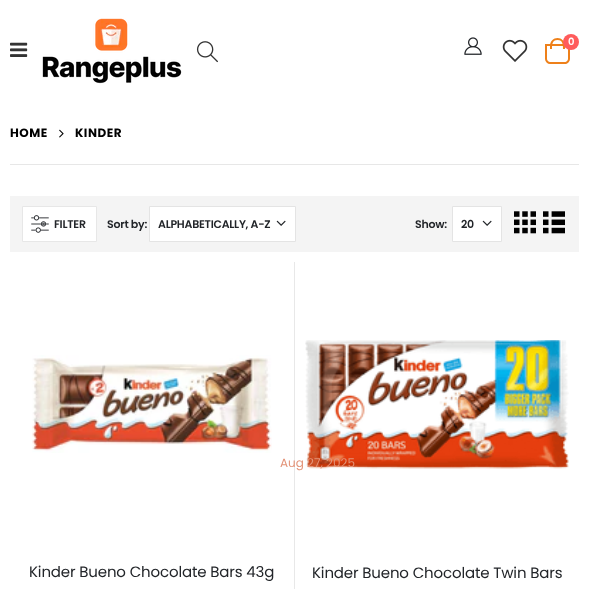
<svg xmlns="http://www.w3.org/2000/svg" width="589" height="589">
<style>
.a{font:600 10px Poppins;fill:#fff}
.b{font:bold 12px Poppins;letter-spacing:0.5px;fill:#000}
.c{font:600 11px Poppins;letter-spacing:-0.25px;fill:#222529}
.d{font:15px Poppins;letter-spacing:-0.15px;fill:#222529}
.e{font:12px Poppins;fill:#e39378}
</style>
<rect width="100%" height="100%" fill="#fff"/>
<image href="1.png" x="10" y="42" width="18" height="15"/>
<image href="2.png" x="42" y="18" width="140" height="66"/>
<image href="3.png" x="196" y="41" width="22" height="22"/>
<image href="4.png" x="464" y="37" width="18" height="18"/>
<image href="5.png" x="502" y="39" width="26" height="23"/>
<path fill="none" stroke="#ee801a" stroke-width="2" d="M546 45h23v14c0 2-2 4-4 4h-15c-2 0-4-2-4-4z"/>
<path fill="#ee801a" fill-rule="evenodd" d="M557.5 38c4 0 7.5 3.5 7.5 7.5v3.5h-15v-3.5c0-4 3.5-7.5 7.5-7.5zm0 2c5.5 0 5.5 5 5.5 9h-11c0-4 0-9 5.5-9z"/>
<circle fill="#ff5b5b" cx="571" cy="42" r="8"/>
<path fill="#e7e7e7" d="M10 164h569v1H10z"/>
<image href="6.png" x="59" y="129" width="5" height="9"/>
<path fill="#f4f4f4" d="M10 196h569v56H10z"/>
<path fill="#fff" stroke="#e7e7e7" d="M22.5 206.5h74v35H22.5z"/>
<image href="7.png" x="31" y="215" width="18" height="18"/>
<path fill="#fff" stroke="#e4e4e4" d="M149.5 206.5h146v35H149.5z"/>
<image href="8.png" x="276" y="220" width="10" height="6"/>
<path fill="#fff" stroke="#e4e4e4" d="M452.5 206.5h49v35H452.5z"/>
<image href="8.png" x="482" y="220" width="10" height="6"/>
<image href="9.png" x="514" y="211" width="22" height="23"/>
<image href="10.png" x="543" y="211" width="22" height="23"/>
<path fill="#e8e8e8" d="M295 262v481l-1-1v-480z"/>
<image href="11.png" x="32" y="355" width="240" height="98"/>
<image href="12.png" x="305" y="340" width="264" height="129"/>
<text class="a" x="568" y="45">0</text>
<text class="b" x="10" y="137">HOME</text>
<text class="b" x="75" y="137">KINDER</text>
<text class="c" x="54" y="228">FILTER</text>
<text class="c" x="107" y="228">Sort by:</text>
<text class="c" x="158" y="228">ALPHABETICALLY, A-Z</text>
<text class="c" x="415" y="228">Show:</text>
<text class="c" x="461" y="228">20</text>
<text class="d" x="29" y="577">Kinder Bueno Chocolate Bars 43g</text>
<text class="d" x="312" y="578">Kinder Bueno Chocolate Twin Bars</text>
<text class="e" x="280" y="467">Aug 27, 2025</text>
</svg>
